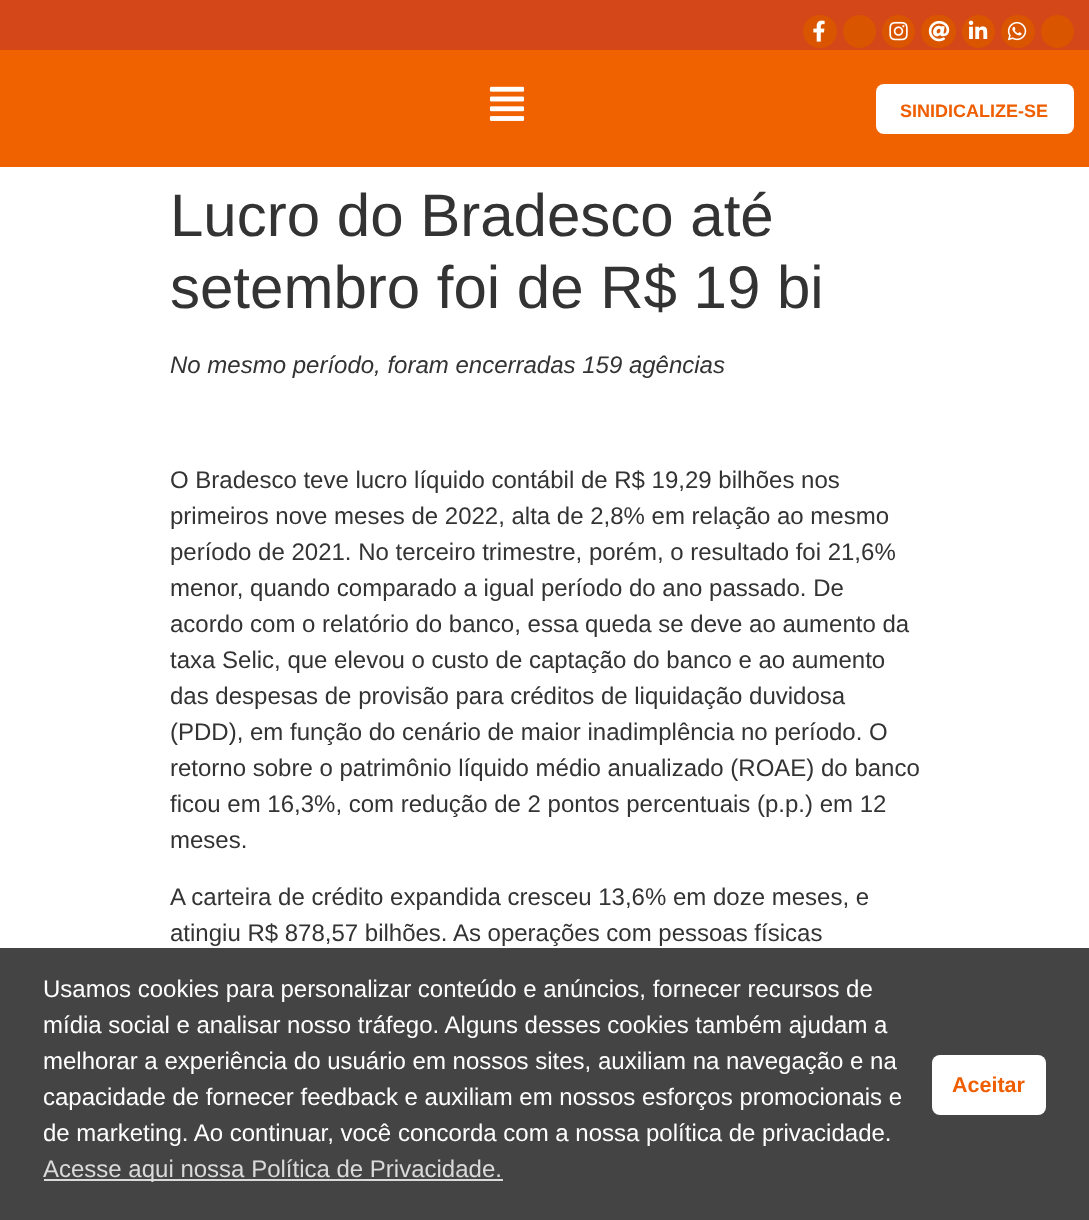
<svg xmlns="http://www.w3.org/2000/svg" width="1089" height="1220">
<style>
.a{font:bold 18px Liberation Sans;fill:#ef5e01}
.b{font:60px Liberation Sans;fill:#333}
.c{font:italic 24px Liberation Sans;fill:#333}
.d{font:24px Liberation Sans;fill:#333}
.e{font:24px Liberation Sans;fill:#fff}
.f{font:24px Liberation Sans;fill:#dadada}
.g{font:bold 21.5px Liberation Sans;fill:#ef5e01}
</style>
<rect width="100%" height="100%" fill="#fff"/>
<path fill="#d34718" d="M0 0h1089v50H0z"/>
<rect fill="#da5500" x="803" y="15" width="34" height="33" rx="16.5"/>
<image href="1.png" x="813" y="20" width="12" height="22"/>
<circle fill="#da5500" cx="859.5" cy="31.5" r="16.5"/>
<circle fill="#da5500" cx="898.5" cy="31.5" r="16.5"/>
<image href="2.png" x="889" y="21" width="19" height="20"/>
<rect fill="#da5500" x="921" y="15" width="35" height="33" rx="16.5"/>
<image href="3.png" x="928" y="21" width="22" height="21"/>
<circle fill="#da5500" cx="978.5" cy="31.5" r="16.5"/>
<image href="4.png" x="968" y="20" width="20" height="19"/>
<rect fill="#da5500" x="1001" y="15" width="34" height="33" rx="16.5"/>
<image href="5.png" x="1007" y="21" width="20" height="20"/>
<circle fill="#da5500" cx="1057.5" cy="31.5" r="16.5"/>
<path fill="#f06100" d="M0 50h1089v117H0z"/>
<image href="6.png" x="489" y="86" width="36" height="35"/>
<rect fill="#fff" x="876" y="84" width="198" height="50" rx="8"/>
<path fill="#444" d="M0 948h1089v272H0z"/>
<path fill="#dadada" d="M44 1179h459v2H44z"/>
<rect fill="#fff" x="932" y="1055" width="114" height="60" rx="8"/>
<text class="a" x="900" y="117">SINIDICALIZE-SE</text>
<text class="b" x="170" y="236">Lucro do Bradesco até</text>
<text class="b" x="170" y="308">setembro foi de R$ 19 bi</text>
<text class="c" x="170" y="373">No mesmo período, foram encerradas 159 agências</text>
<text class="d" x="170" y="488">O Bradesco teve lucro líquido contábil de R$ 19,29 bilhões nos</text>
<text class="d" x="170" y="524">primeiros nove meses de 2022, alta de 2,8% em relação ao mesmo</text>
<text class="d" x="170" y="560">período de 2021. No terceiro trimestre, porém, o resultado foi 21,6%</text>
<text class="d" x="170" y="596">menor, quando comparado a igual período do ano passado. De</text>
<text class="d" x="170" y="632">acordo com o relatório do banco, essa queda se deve ao aumento da</text>
<text class="d" x="170" y="668">taxa Selic, que elevou o custo de captação do banco e ao aumento</text>
<text class="d" x="170" y="704">das despesas de provisão para créditos de liquidação duvidosa</text>
<text class="d" x="170" y="740">(PDD), em função do cenário de maior inadimplência no período. O</text>
<text class="d" x="170" y="776">retorno sobre o patrimônio líquido médio anualizado (ROAE) do banco</text>
<text class="d" x="170" y="812">ficou em 16,3%, com redução de 2 pontos percentuais (p.p.) em 12</text>
<text class="d" x="170" y="848">meses.</text>
<text class="d" x="170" y="905">A carteira de crédito expandida cresceu 13,6% em doze meses, e</text>
<text class="d" x="170" y="941">atingiu R$ 878,57 bilhões. As operações com pessoas físicas</text>
<text class="e" x="43" y="997">Usamos cookies para personalizar conteúdo e anúncios, fornecer recursos de</text>
<text class="e" x="43" y="1033">mídia social e analisar nosso tráfego. Alguns desses cookies também ajudam a</text>
<text class="e" x="43" y="1069">melhorar a experiência do usuário em nossos sites, auxiliam na navegação e na</text>
<text class="e" x="43" y="1105">capacidade de fornecer feedback e auxiliam em nossos esforços promocionais e</text>
<text class="e" x="43" y="1141">de marketing. Ao continuar, você concorda com a nossa política de privacidade.</text>
<text class="f" x="43" y="1177">Acesse aqui nossa Política de Privacidade.</text>
<text class="g" x="952" y="1092">Aceitar</text>
</svg>
